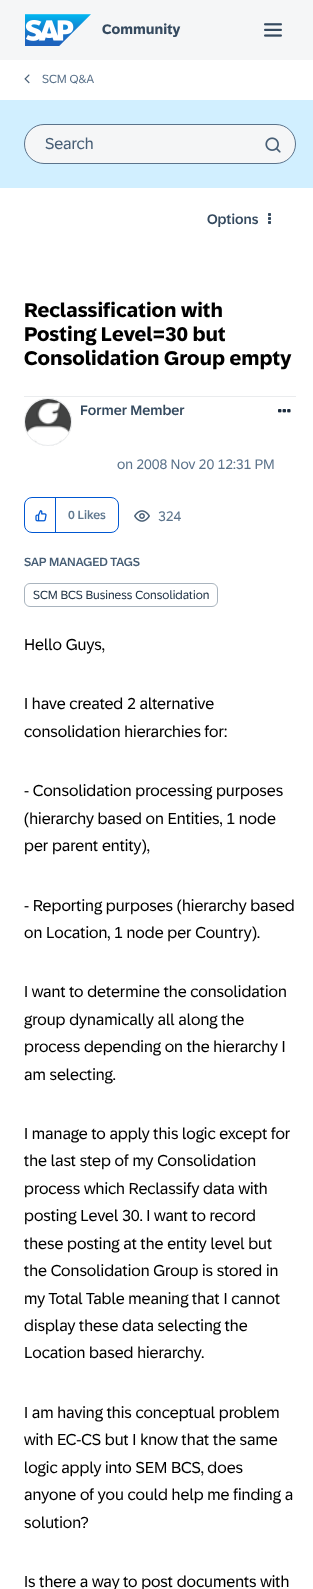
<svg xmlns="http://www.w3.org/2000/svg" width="313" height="1589">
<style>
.a{font:bold 14px '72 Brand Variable';fill:#354a5f}
.b{font:12px '72 Brand Variable';fill:#5b738b}
.c{font:16px '72 Brand Variable';fill:#475e75}
.d{font:500 14px '72 Brand Variable';fill:#354a5f}
.e{font:bold 20px '72 Brand Variable';fill:#000}
.f{font:14px '72 Brand Variable';fill:#5b738b}
.g{font:500 12px '72 Brand Variable';fill:#617990}
.h{font:500 12px '72 Brand Variable';fill:#475e75}
.i{font:12px '72 Brand Variable';fill:#223548}
.j{font:16px '72 Brand Variable';fill:#000}
</style>
<defs>
<clipPath id="clip1"><path d="M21 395h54v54h-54zm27 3c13.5 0 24 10.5 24 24c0 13.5-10.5 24-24 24c-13.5 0-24-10.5-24-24c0-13.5 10.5-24 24-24z" clip-rule="evenodd"/></clipPath>
</defs>
<rect width="100%" height="100%" fill="#fff"/>
<path fill="#f5f6f7" d="M0 0h313v60H0z"/>
<image href="1.png" x="25" y="14" width="66" height="32"/>
<image href="2.png" x="264" y="23" width="18" height="14"/>
<image href="3.png" x="24" y="74" width="6" height="10"/>
<path fill="#d1efff" d="M0 100h313v88H0z"/>
<rect fill="#f5f6f7" stroke="#5b738b" x="24.5" y="124.5" width="271" height="39" rx="19.5"/>
<image href="4.png" x="265" y="137" width="16" height="16"/>
<image href="5.png" x="268" y="213" width="3" height="11"/>
<path fill="#eaecee" d="M24 396h272v1H24z"/>
<g clip-path="url(#clip1)">
<rect fill="#c4c4c4" filter="blur(0.5px)" x="24" y="398" width="48" height="48" rx="24"/>
</g>
<circle fill="none" stroke="#eaecee" cx="48" cy="422" r="23.5"/>
<image href="6.png" x="25" y="399" width="46" height="43"/>
<image href="7.png" x="278" y="409" width="13" height="4"/>
<rect fill="none" stroke="#0057d2" x="24.5" y="497.5" width="94" height="35" rx="7.5"/>
<path fill="#0057d2" d="M55 498h1v35H55z"/>
<image href="8.png" x="35" y="510" width="12" height="12"/>
<image href="9.png" x="134" y="510" width="16" height="12"/>
<rect fill="none" stroke="#a9b4be" x="24.5" y="583.5" width="193" height="23" rx="5.5"/>
<text class="a" x="102" y="34">Community</text>
<text class="b" x="42" y="83">SCM Q&amp;A</text>
<text class="c" x="45" y="149">Search</text>
<text class="d" x="207" y="224">Options</text>
<text class="e" x="24" y="317">Reclassification with</text>
<text class="e" x="24" y="341">Posting Level=30 but</text>
<text class="e" x="24" y="365">Consolidation Group empty</text>
<text class="d" x="80" y="415">Former Member</text>
<text class="f" x="117" y="469">on 2008 Nov 20 12:31 PM</text>
<text class="g" x="68" y="519">0 Likes</text>
<text class="f" x="158" y="521">324</text>
<text class="h" x="24" y="566">SAP MANAGED TAGS</text>
<text class="i" x="33" y="599">SCM BCS Business Consolidation</text>
<text class="j" x="24" y="650">Hello Guys,</text>
<text class="j" x="24" y="709">I have created 2 alternative</text>
<text class="j" x="24" y="737">consolidation hierarchies for:</text>
<text class="j" x="24" y="796">- Consolidation processing purposes</text>
<text class="j" x="24" y="824">(hierarchy based on Entities, 1 node</text>
<text class="j" x="24" y="851">per parent entity),</text>
<text class="j" x="24" y="911">- Reporting purposes (hierarchy based</text>
<text class="j" x="24" y="938">on Location, 1 node per Country).</text>
<text class="j" x="24" y="997">I want to determine the consolidation</text>
<text class="j" x="24" y="1025">group dynamically all along the</text>
<text class="j" x="24" y="1052">process depending on the hierarchy I</text>
<text class="j" x="24" y="1080">am selecting.</text>
<text class="j" x="24" y="1139">I manage to apply this logic except for</text>
<text class="j" x="24" y="1166">the last step of my Consolidation</text>
<text class="j" x="24" y="1194">process which Reclassify data with</text>
<text class="j" x="24" y="1221">posting Level 30. I want to record</text>
<text class="j" x="24" y="1249">these posting at the entity level but</text>
<text class="j" x="24" y="1276">the Consolidation Group is stored in</text>
<text class="j" x="24" y="1304">my Total Table meaning that I cannot</text>
<text class="j" x="24" y="1331">display these data selecting the</text>
<text class="j" x="24" y="1358">Location based hierarchy.</text>
<text class="j" x="24" y="1418">I am having this conceptual problem</text>
<text class="j" x="24" y="1445">with EC-CS but I know that the same</text>
<text class="j" x="24" y="1473">logic apply into SEM BCS, does</text>
<text class="j" x="24" y="1500">anyone of you could help me finding a</text>
<text class="j" x="24" y="1528">solution?</text>
<text class="j" x="24" y="1587">Is there a way to post documents with</text>
</svg>
